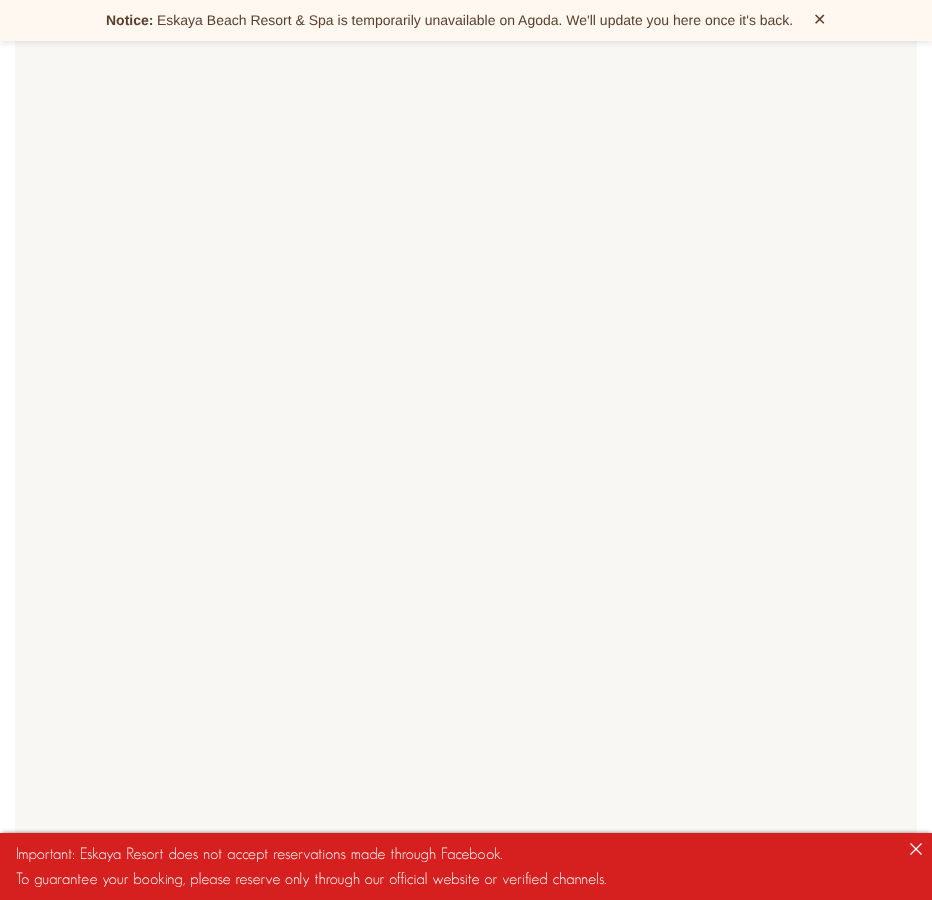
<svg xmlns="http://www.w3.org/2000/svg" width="932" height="900">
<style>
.a{font:bold 14px Liberation Sans;fill:#5a3e2b}
.b{font:14px Liberation Sans;fill:#5a3e2b}
.c{font:16px DejaVu Sans;fill:#5a3e2b}
.d{font:300 16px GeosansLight;fill:#fff}
</style>
<rect width="100%" height="100%" fill="#fff"/>
<path fill="#f8f7f3" d="M15 41h902v792H15z"/>
<path fill="#0000001a" filter="blur(3px)" d="M0 2h932v41H0z"/>
<path fill="#fff8f0" d="M0 0h932v41H0z"/>
<path fill="#00000080" filter="blur(2px)" d="M2 833h928v63H2z"/>
<path fill="#d61f1f" d="M0 833h932v67H0z"/>
<image href="1.png" x="910" y="843" width="12" height="12"/>
<text class="a" x="106" y="25">Notice:</text>
<text class="b" x="157" y="25">Eskaya Beach Resort &amp; Spa is temporarily unavailable on Agoda. We'll update you here once it's back.</text>
<text class="c" x="813" y="25">✕</text>
<text class="d" x="16" y="859" word-spacing="1">Important: Eskaya Resort does not accept reservations made through Facebook.</text>
<text class="d" x="16" y="884" word-spacing="0.75">To guarantee your booking, please reserve only through our official website or verified channels.</text>
</svg>
